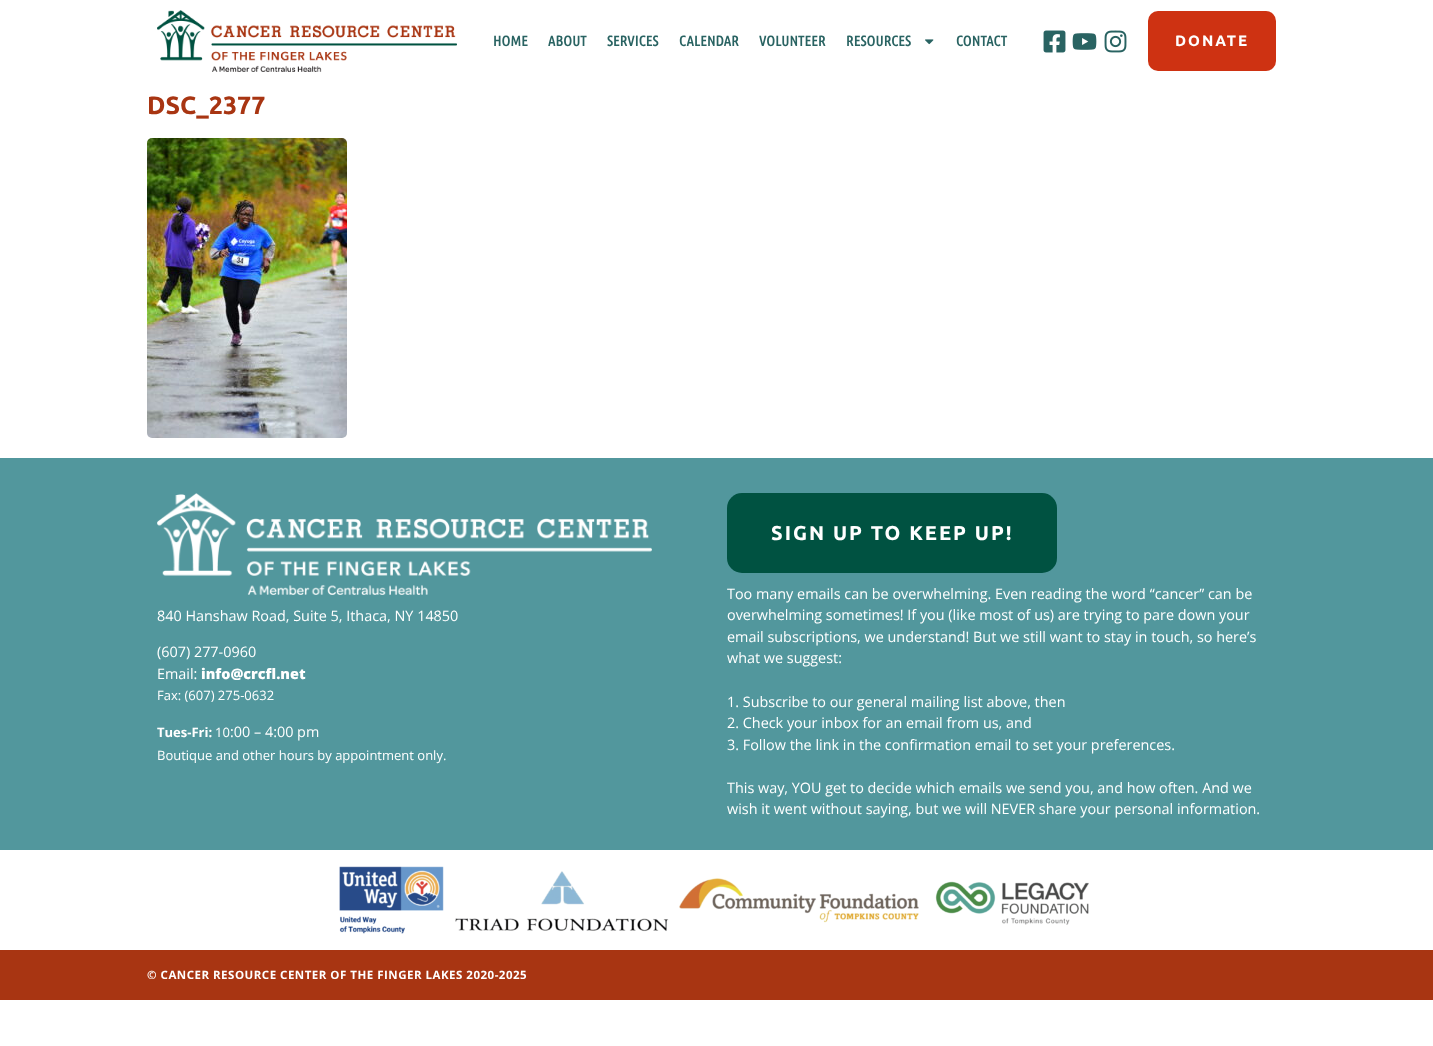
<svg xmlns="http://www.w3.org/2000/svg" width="1433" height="1046">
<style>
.a{font:bold 14.4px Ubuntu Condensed;letter-spacing:0.25px;fill:#296362}
.b{font:bold 15px Ubuntu;letter-spacing:2px;fill:#fff}
.c{font:bold 25px Ubuntu;fill:#a83512}
.d{font:14.4px Open Sans;fill:#fff}
.e{font:800 14.4px Open Sans;fill:#fff}
.f{font:13px Open Sans;fill:#fff}
.g{font:bold 13px Open Sans;fill:#fff}
.h{font:bold 20px Ubuntu;letter-spacing:2px;fill:#fff}
.i{font:bold 11.5px Open Sans;letter-spacing:0.5px;fill:#fff}
</style>
<rect width="100%" height="100%" fill="#fff"/>
<image href="1.png" x="157" y="10" width="300" height="62"/>
<image href="2.png" x="925" y="39" width="9" height="6"/>
<image href="3.png" x="1043" y="30" width="23" height="23"/>
<image href="4.png" x="1072" y="33" width="25" height="17"/>
<image href="5.png" x="1104" y="30" width="23" height="23"/>
<rect fill="#ce3212" x="1148" y="11" width="128" height="60" rx="10"/>
<image href="6.png" x="147" y="138" width="200" height="300"/>
<path fill="#52979d" d="M0 458h1433v392H0z"/>
<image href="7.png" x="157" y="493" width="495" height="102"/>
<rect fill="#005241" x="727" y="493" width="330" height="80" rx="15"/>
<image href="8.png" x="339" y="866" width="750" height="68"/>
<path fill="#a83512" d="M0 950h1433v50H0z"/>
<text class="a" x="493" y="46">HOME</text>
<text class="a" x="548" y="46">ABOUT</text>
<text class="a" x="607" y="46">SERVICES</text>
<text class="a" x="679" y="46">CALENDAR</text>
<text class="a" x="759" y="46">VOLUNTEER</text>
<text class="a" x="846" y="46">RESOURCES</text>
<text class="a" x="956" y="46">CONTACT</text>
<text class="b" x="1175" y="46">DONATE</text>
<text class="c" x="147" y="114">DSC_2377</text>
<text class="d" x="157" y="621">840 Hanshaw Road, Suite 5, Ithaca, NY 14850</text>
<text class="d" x="157" y="657">(607) 277-0960</text>
<text class="d" x="157" y="679">Email:</text>
<text class="e" x="201" y="679">info@crcfl.net</text>
<text class="f" x="157" y="700">Fax: (607) 275-0632</text>
<text class="g" x="157" y="737">Tues-Fri:</text>
<text class="f" x="215" y="737">10</text>
<text class="d" x="230" y="737">:00 – 4:00 pm</text>
<text class="f" x="157" y="760">Boutique and other hours by appointment only.</text>
<text class="h" x="771" y="540">SIGN UP TO KEEP UP!</text>
<text class="d" x="727" y="599">Too many emails can be overwhelming. Even reading the word “cancer” can be</text>
<text class="d" x="727" y="620">overwhelming sometimes! If you (like most of us) are trying to pare down your</text>
<text class="d" x="727" y="642">email subscriptions, we understand! But we still want to stay in touch, so here’s</text>
<text class="d" x="727" y="663">what we suggest:</text>
<text class="d" x="727" y="707">1. Subscribe to our general mailing list above, then</text>
<text class="d" x="727" y="728">2. Check your inbox for an email from us, and</text>
<text class="d" x="727" y="750">3. Follow the link in the confirmation email to set your preferences.</text>
<text class="d" x="727" y="793">This way, YOU get to decide which emails we send you, and how often. And we</text>
<text class="d" x="727" y="814">wish it went without saying, but we will NEVER share your personal information.</text>
<text class="i" x="147" y="979">© CANCER RESOURCE CENTER OF THE FINGER LAKES 2020-2025</text>
</svg>
